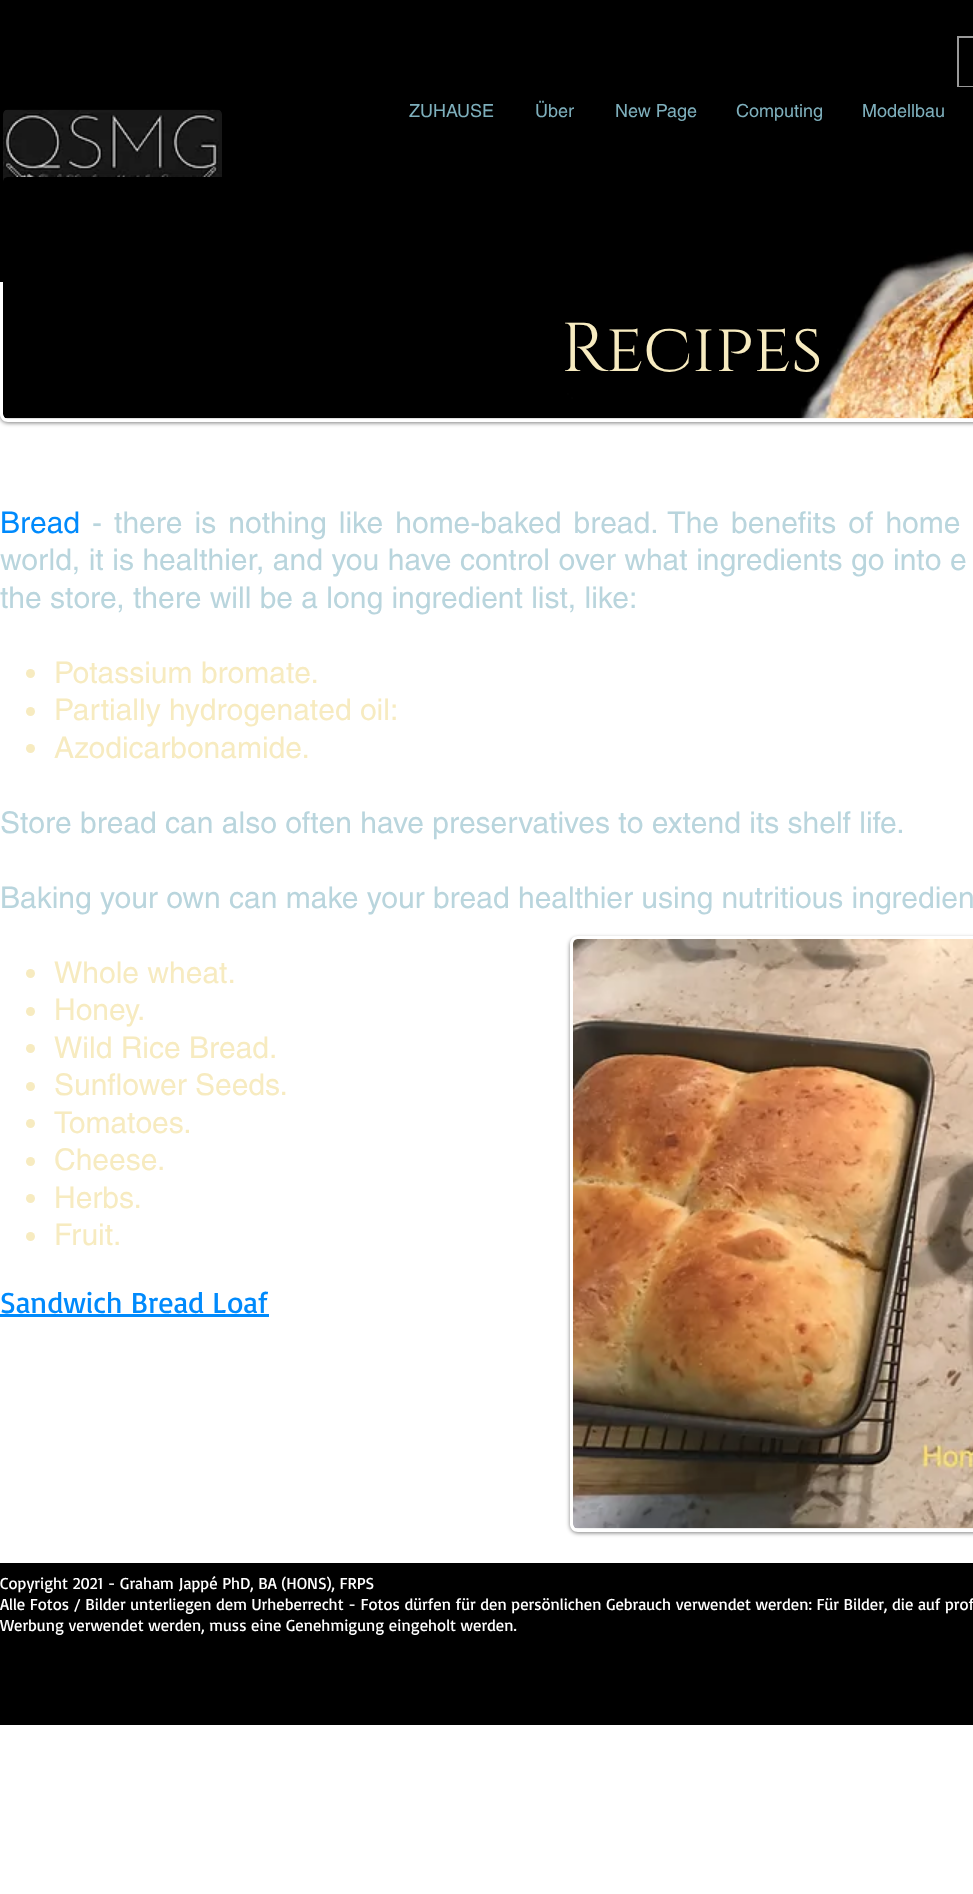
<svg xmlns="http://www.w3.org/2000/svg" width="973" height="1894">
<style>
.a{font:18px helvetica;fill:#7eafbc}
.b{font:69px Cinzel;fill:#f7ebc0}
.c{font:30px helvetica;fill:#008afc}
.d{font:30px helvetica;fill:#b9d5dd}
.e{font:30px helvetica;fill:#f7ebc0}
.f{font:30px Basic;fill:#008afc}
.g{font:16.5px Basic;fill:#fff}
</style>
<defs>
<clipPath id="clip1"><path d="M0 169h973v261h-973zm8 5h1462c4.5 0 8 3.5 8 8v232c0 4.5-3.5 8-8 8h-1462c-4.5 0-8-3.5-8-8v-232c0-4.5 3.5-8 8-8z" clip-rule="evenodd"/></clipPath>
<clipPath id="clip2"><path d="M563 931h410v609h-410zm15 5h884c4.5 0 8 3.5 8 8v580c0 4.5-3.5 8-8 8h-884c-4.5 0-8-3.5-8-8v-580c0-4.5 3.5-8 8-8z" clip-rule="evenodd"/></clipPath>
</defs>
<rect width="100%" height="100%" fill="#fff"/>
<path fill="#000" d="M0 0h973v282H0z"/>
<path fill="none" stroke="#999" stroke-width="2" d="M958 37h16v49H958z"/>
<path fill="#000" d="M959 85h14v1H959z"/>
<image href="1.png" x="3" y="109" width="219" height="73"/>
<g clip-path="url(#clip1)">
<rect fill="#00000080" filter="blur(2px)" y="176" width="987" height="247" rx="8"/>
</g>
<image href="2.png" x="3" y="177" width="970" height="242"/>
<circle fill="#f7ebc0" cx="30.5" cy="673.5" r="4.5"/>
<circle fill="#f7ebc0" cx="30.5" cy="711.5" r="4.5"/>
<circle fill="#f7ebc0" cx="30.5" cy="748.5" r="4.5"/>
<circle fill="#f7ebc0" cx="30.5" cy="973.5" r="4.5"/>
<circle fill="#f7ebc0" cx="30.5" cy="1011.5" r="4.5"/>
<circle fill="#f7ebc0" cx="30.5" cy="1048.5" r="4.5"/>
<circle fill="#f7ebc0" cx="30.5" cy="1086.5" r="4.5"/>
<circle fill="#f7ebc0" cx="30.5" cy="1123.5" r="4.5"/>
<circle fill="#f7ebc0" cx="30.5" cy="1161.5" r="4.5"/>
<circle fill="#f7ebc0" cx="30.5" cy="1198.5" r="4.5"/>
<circle fill="#f7ebc0" cx="30.5" cy="1236.5" r="4.5"/>
<path fill="#008afc" d="M0 1314h269v3H0z"/>
<g clip-path="url(#clip2)">
<rect fill="#00000080" filter="blur(2px)" x="570" y="938" width="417" height="595" rx="8"/>
</g>
<image href="3.png" x="573" y="939" width="400" height="590"/>
<path fill="#000" d="M0 1563h973v162H0z"/>
<text class="a" x="409" y="117">ZUHAUSE</text>
<text class="a" x="535" y="117">Über</text>
<text class="a" x="615" y="117">New Page</text>
<text class="a" x="736" y="117">Computing</text>
<text class="a" x="862" y="117">Modellbau</text>
<text class="b" x="561" y="371">Recipes</text>
<text class="c" x="0" y="533">Bread</text>
<text class="d" x="92" y="533" word-spacing="3.75">- there is nothing like home-baked bread. The benefits of home</text>
<text class="d" x="0" y="570" word-spacing="0.2">world, it is healthier, and you have control over what ingredients go into e</text>
<text class="d" x="0" y="608">the store, there will be a long ingredient list, like:</text>
<text class="e" x="54" y="683">Potassium bromate.</text>
<text class="e" x="54" y="720">Partially hydrogenated oil:</text>
<text class="e" x="54" y="758">Azodicarbonamide.</text>
<text class="d" x="0" y="833">Store bread can also often have preservatives to extend its shelf life.</text>
<text class="d" x="0" y="908">Baking your own can make your bread healthier using nutritious ingredien</text>
<text class="e" x="54" y="983">Whole wheat.</text>
<text class="e" x="54" y="1020">Honey.</text>
<text class="e" x="54" y="1058">Wild Rice Bread.</text>
<text class="e" x="54" y="1095">Sunflower Seeds.</text>
<text class="e" x="54" y="1133">Tomatoes.</text>
<text class="e" x="54" y="1170">Cheese.</text>
<text class="e" x="54" y="1208">Herbs.</text>
<text class="e" x="54" y="1245">Fruit.</text>
<text class="f" x="0" y="1313">Sandwich Bread Loaf</text>
<text class="g" x="0" y="1589">Copyright 2021 - Graham Jappé PhD, BA (HONS), FRPS</text>
<text class="g" x="0" y="1610">Alle Fotos / Bilder unterliegen dem Urheberrecht - Fotos dürfen für den persönlichen Gebrauch verwendet werden: Für Bilder, die auf prof</text>
<text class="g" x="0" y="1631">Werbung verwendet werden, muss eine Genehmigung eingeholt werden.</text>
</svg>
